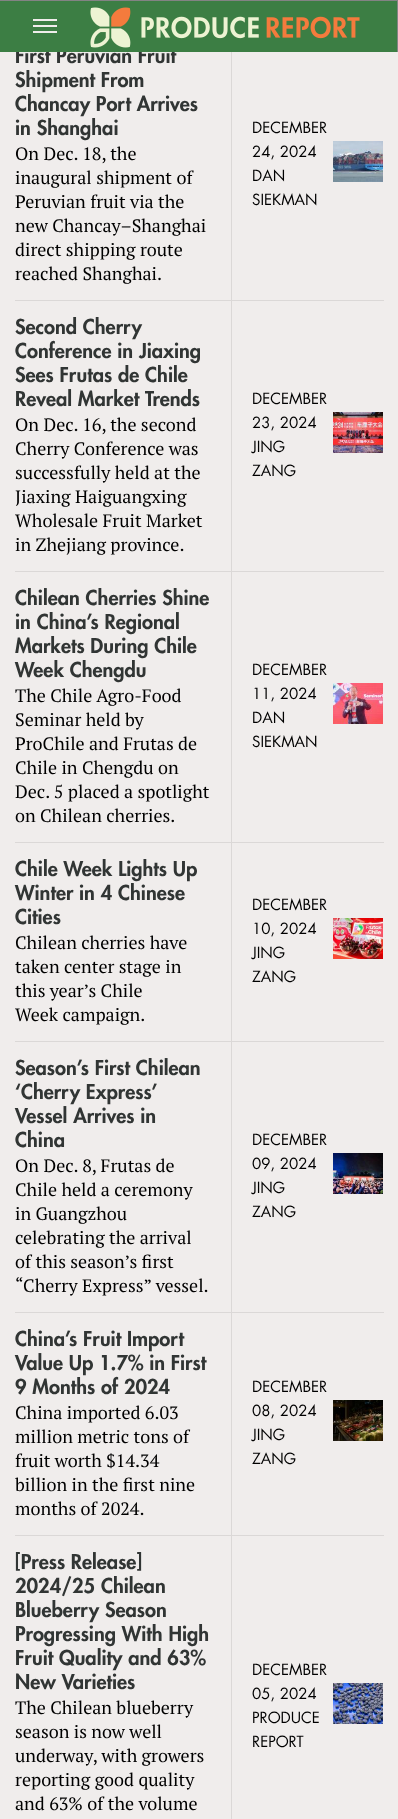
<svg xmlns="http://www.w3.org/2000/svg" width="398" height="1819">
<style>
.a{font:900 20px Futura;fill:#313534}
.b{font:18px PT Serif;fill:#000}
.c{font:15px Futura;fill:#000}
</style>
<rect width="100%" height="100%" fill="#f0edec"/>
<path fill="#838384" d="M0 0h398v1H0z"/>
<path fill="#838384" d="M397 0h1v52H397z"/>
<path fill="#dbd8d7" d="M15 300h369v1H15z"/>
<image href="2.png" x="333" y="141" width="50" height="41"/>
<path fill="#dbd8d7" d="M15 571h369v1H15z"/>
<image href="3.png" x="333" y="412" width="50" height="41"/>
<path fill="#dbd8d7" d="M15 842h369v1H15z"/>
<image href="4.png" x="333" y="683" width="50" height="41"/>
<path fill="#dbd8d7" d="M15 1041h369v1H15z"/>
<image href="5.png" x="333" y="918" width="50" height="41"/>
<path fill="#dbd8d7" d="M15 1312h369v1H15z"/>
<image href="6.png" x="333" y="1153" width="50" height="41"/>
<path fill="#dbd8d7" d="M15 1535h369v1H15z"/>
<image href="7.png" x="333" y="1400" width="50" height="41"/>
<path fill="#dbd8d7" d="M231 52h1v1767H231z"/>
<image href="8.png" x="333" y="1683" width="50" height="41"/>
<text class="a" x="15" y="63">First Peruvian Fruit</text>
<path fill="#3c7e44" d="M0 1h397v51H0z"/>
<path fill="#f0edec" d="M33 19h24v2H33z"/>
<path fill="#f0edec" d="M33 25h24v2H33z"/>
<path fill="#f0edec" d="M33 31h24v2H33z"/>
<image href="1.png" x="90" y="7" width="270" height="41"/>
<text class="a" x="15" y="87">Shipment From</text>
<text class="a" x="15" y="111">Chancay Port Arrives</text>
<text class="a" x="15" y="135">in Shanghai</text>
<text class="b" x="15" y="160">On Dec. 18, the</text>
<text class="b" x="15" y="184">inaugural shipment of</text>
<text class="b" x="15" y="208">Peruvian fruit via the</text>
<text class="b" x="15" y="232">new Chancay–Shanghai</text>
<text class="b" x="15" y="256">direct shipping route</text>
<text class="b" x="15" y="280">reached Shanghai.</text>
<text class="c" x="252" y="133">DECEMBER</text>
<text class="c" x="252" y="157">24, 2024</text>
<text class="c" x="252" y="181">DAN</text>
<text class="c" x="252" y="205">SIEKMAN</text>
<text class="a" x="15" y="334">Second Cherry</text>
<text class="a" x="15" y="358">Conference in Jiaxing</text>
<text class="a" x="15" y="382">Sees Frutas de Chile</text>
<text class="a" x="15" y="406">Reveal Market Trends</text>
<text class="b" x="15" y="431">On Dec. 16, the second</text>
<text class="b" x="15" y="455">Cherry Conference was</text>
<text class="b" x="15" y="479">successfully held at the</text>
<text class="b" x="15" y="503">Jiaxing Haiguangxing</text>
<text class="b" x="15" y="527">Wholesale Fruit Market</text>
<text class="b" x="15" y="551">in Zhejiang province.</text>
<text class="c" x="252" y="404">DECEMBER</text>
<text class="c" x="252" y="428">23, 2024</text>
<text class="c" x="252" y="452">JING</text>
<text class="c" x="252" y="476">ZANG</text>
<text class="a" x="15" y="605">Chilean Cherries Shine</text>
<text class="a" x="15" y="629">in China’s Regional</text>
<text class="a" x="15" y="653">Markets During Chile</text>
<text class="a" x="15" y="677">Week Chengdu</text>
<text class="b" x="15" y="702">The Chile Agro-Food</text>
<text class="b" x="15" y="726">Seminar held by</text>
<text class="b" x="15" y="750">ProChile and Frutas de</text>
<text class="b" x="15" y="774">Chile in Chengdu on</text>
<text class="b" x="15" y="798">Dec. 5 placed a spotlight</text>
<text class="b" x="15" y="822">on Chilean cherries.</text>
<text class="c" x="252" y="675">DECEMBER</text>
<text class="c" x="252" y="699">11, 2024</text>
<text class="c" x="252" y="723">DAN</text>
<text class="c" x="252" y="747">SIEKMAN</text>
<text class="a" x="15" y="876">Chile Week Lights Up</text>
<text class="a" x="15" y="900">Winter in 4 Chinese</text>
<text class="a" x="15" y="924">Cities</text>
<text class="b" x="15" y="949">Chilean cherries have</text>
<text class="b" x="15" y="973">taken center stage in</text>
<text class="b" x="15" y="997">this year’s Chile</text>
<text class="b" x="15" y="1021">Week campaign.</text>
<text class="c" x="252" y="910">DECEMBER</text>
<text class="c" x="252" y="934">10, 2024</text>
<text class="c" x="252" y="958">JING</text>
<text class="c" x="252" y="982">ZANG</text>
<text class="a" x="15" y="1075">Season’s First Chilean</text>
<text class="a" x="15" y="1099">‘Cherry Express’</text>
<text class="a" x="15" y="1123">Vessel Arrives in</text>
<text class="a" x="15" y="1147">China</text>
<text class="b" x="15" y="1172">On Dec. 8, Frutas de</text>
<text class="b" x="15" y="1196">Chile held a ceremony</text>
<text class="b" x="15" y="1220">in Guangzhou</text>
<text class="b" x="15" y="1244">celebrating the arrival</text>
<text class="b" x="15" y="1268">of this season’s first</text>
<text class="b" x="15" y="1292">“Cherry Express” vessel.</text>
<text class="c" x="252" y="1145">DECEMBER</text>
<text class="c" x="252" y="1169">09, 2024</text>
<text class="c" x="252" y="1193">JING</text>
<text class="c" x="252" y="1217">ZANG</text>
<text class="a" x="15" y="1346">China’s Fruit Import</text>
<text class="a" x="15" y="1370">Value Up 1.7% in First</text>
<text class="a" x="15" y="1394">9 Months of 2024</text>
<text class="b" x="15" y="1419">China imported 6.03</text>
<text class="b" x="15" y="1443">million metric tons of</text>
<text class="b" x="15" y="1467">fruit worth $14.34</text>
<text class="b" x="15" y="1491">billion in the first nine</text>
<text class="b" x="15" y="1515">months of 2024.</text>
<text class="c" x="252" y="1392">DECEMBER</text>
<text class="c" x="252" y="1416">08, 2024</text>
<text class="c" x="252" y="1440">JING</text>
<text class="c" x="252" y="1464">ZANG</text>
<text class="a" x="15" y="1569">[Press Release]</text>
<text class="a" x="15" y="1593">2024/25 Chilean</text>
<text class="a" x="15" y="1617">Blueberry Season</text>
<text class="a" x="15" y="1641">Progressing With High</text>
<text class="a" x="15" y="1665">Fruit Quality and 63%</text>
<text class="a" x="15" y="1689">New Varieties</text>
<text class="b" x="15" y="1714">The Chilean blueberry</text>
<text class="b" x="15" y="1738">season is now well</text>
<text class="b" x="15" y="1762">underway, with growers</text>
<text class="b" x="15" y="1786">reporting good quality</text>
<text class="b" x="15" y="1810">and 63% of the volume</text>
<text class="c" x="252" y="1675">DECEMBER</text>
<text class="c" x="252" y="1699">05, 2024</text>
<text class="c" x="252" y="1723">PRODUCE</text>
<text class="c" x="252" y="1747">REPORT</text>
</svg>
